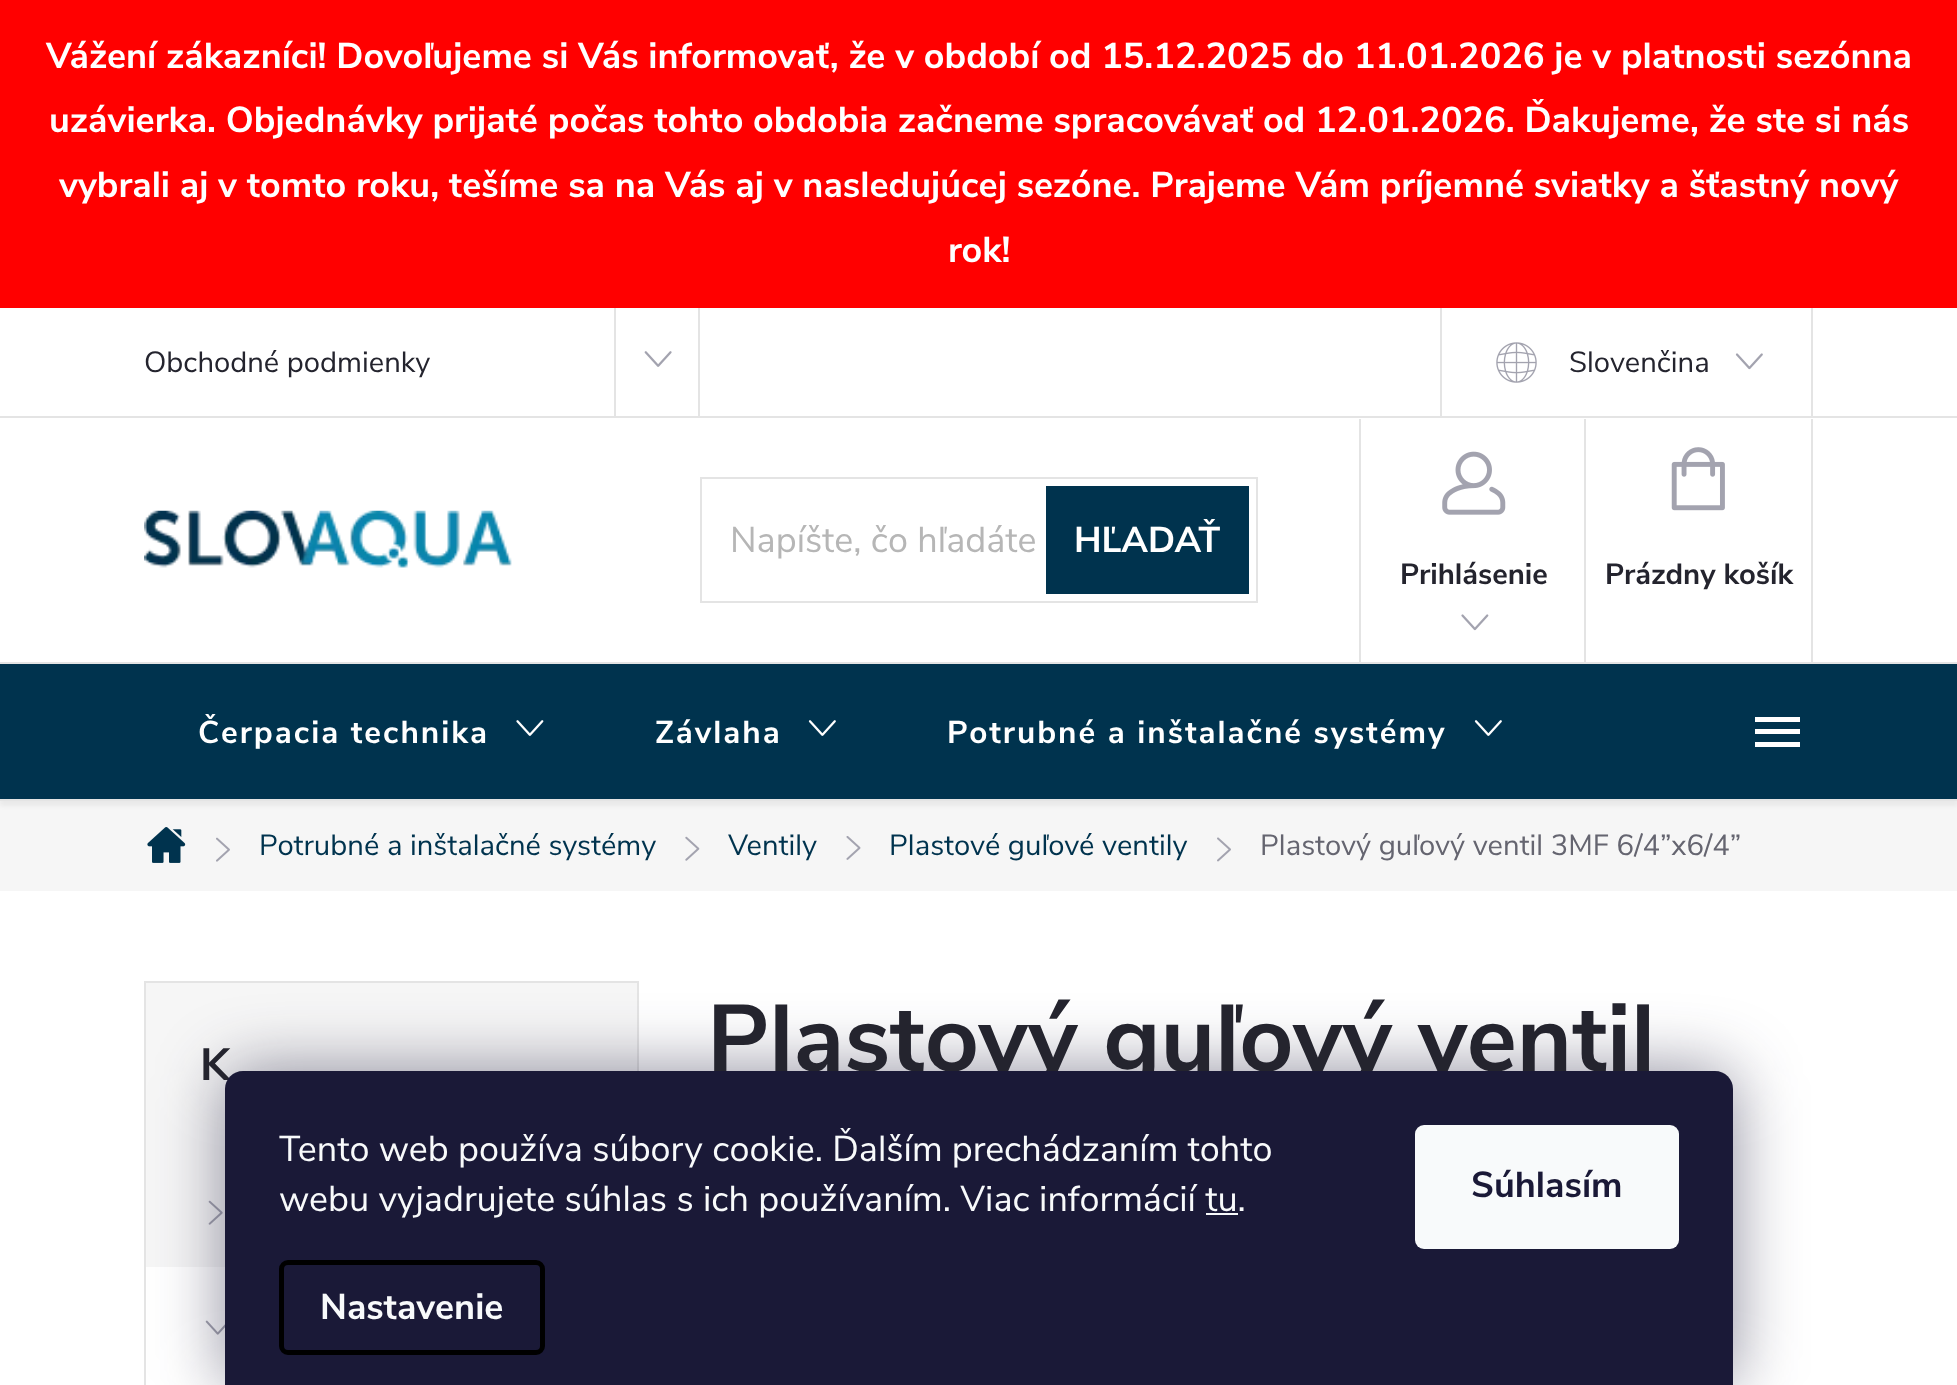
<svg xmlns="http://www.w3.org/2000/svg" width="1957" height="1385">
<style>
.a{font:bold 36px Nunito Sans;fill:#fff}
.b{font:29.25px Nunito Sans;fill:#24242e}
.c{font:36px Nunito Sans;fill:#b6b6b6}
.d{font:bold 29.25px Nunito Sans;fill:#24242e}
.e{font:bold 31.5px Nunito Sans;letter-spacing:2px;fill:#fff}
.f{font:29.25px Nunito Sans;fill:#00334e}
.g{font:29.25px Nunito Sans;fill:#656570}
.h{font:bold 45px Nunito Sans;fill:#24242e}
.i{font:bold 94.5px Nunito Sans;fill:#24242e}
.j{font:36px Nunito Sans;fill:#f8fafb}
.k{font:bold 36px Nunito Sans;fill:#f8fafb}
.l{font:bold 36px Nunito Sans;fill:#1a1937}
</style>
<rect width="100%" height="100%" fill="#fff"/>
<path fill="#f00" d="M0 0h1957v308H0z"/>
<path fill="#e4e4e4" d="M0 416h1957v2H0z"/>
<path fill="#e4e4e4" d="M698 308h2v108H698z"/>
<path fill="#e4e4e4" d="M614 308h2v108H614z"/>
<image href="1.png" x="644" y="351" width="28" height="16"/>
<path fill="#e4e4e4" d="M1811 308h2v108H1811z"/>
<path fill="#e4e4e4" d="M1440 308h2v108H1440z"/>
<image href="2.png" x="1496" y="342" width="41" height="41"/>
<image href="3.png" x="1735" y="353" width="28" height="17"/>
<image href="4.png" x="144" y="510" width="368" height="58"/>
<path fill="none" stroke="#e4e4e4" stroke-width="2" d="M701 478h556v124H701z"/>
<path fill="#00334e" d="M1046 486h203v108H1046z"/>
<path fill="#e4e4e4" d="M1359 419h2v243H1359z"/>
<image href="5.png" x="1442" y="451" width="64" height="64"/>
<image href="6.png" x="1461" y="614" width="28" height="17"/>
<path fill="#e4e4e4" d="M1811 419h2v243H1811z"/>
<path fill="#e4e4e4" d="M1584 419h2v243H1584z"/>
<image href="7.png" x="1671" y="447" width="54" height="64"/>
<path fill="#f6f6f6" d="M0 801h1957v90H0z"/>
<path fill="#0000000d" filter="blur(2px)" d="M0 666h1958v140H0z"/>
<path fill="#00334e" d="M0 664h1957v135H0z"/>
<image href="8.png" x="516" y="720" width="28" height="16"/>
<image href="9.png" x="808" y="720" width="28" height="16"/>
<image href="9.png" x="1474" y="720" width="28" height="16"/>
<path fill="#fff" d="M1755 747h45v-5h-45zm0-13h45v-5h-45zm0-17v5h45v-5z"/>
<path fill="#e4e4e4" d="M0 662h1957v2H0z"/>
<path fill="#e4e4e4" d="M0 799h1957v2H0z"/>
<image href="10.png" x="147" y="827" width="39" height="36"/>
<image href="11.png" x="216" y="837" width="14" height="25"/>
<image href="12.png" x="685" y="836" width="15" height="25"/>
<image href="13.png" x="846" y="836" width="15" height="24"/>
<image href="14.png" x="1217" y="837" width="14" height="25"/>
<path fill="#f6f6f6" d="M146 983h491v284H146z"/>
<path fill="none" stroke="#e4e4e4" stroke-width="2" d="M145 982h493v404H145z"/>
<image href="15.png" x="208" y="1200" width="15" height="25"/>
<image href="16.png" x="205" y="1320" width="20" height="15"/>
<rect fill="#1b193980" filter="blur(34px)" x="225" y="1071" width="1508" height="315" rx="18"/>
<text class="a" x="46" y="68">Vážení zákazníci! Dovoľujeme si Vás informovať, že v období od 15.12.2025 do 11.01.2026 je v platnosti sezónna</text>
<text class="a" x="49" y="132">uzávierka. Objednávky prijaté počas tohto obdobia začneme spracovávať od 12.01.2026. Ďakujeme, že ste si nás</text>
<text class="a" x="59" y="197">vybrali aj v tomto roku, tešíme sa na Vás aj v nasledujúcej sezóne. Prajeme Vám príjemné sviatky a šťastný nový</text>
<text class="a" x="948" y="262">rok!</text>
<text class="b" x="144" y="372">Obchodné podmienky</text>
<text class="b" x="1569" y="372">Slovenčina</text>
<text class="c" x="730" y="552">Napíšte, čo hľadáte</text>
<text class="a" x="1074" y="552">HĽADAŤ</text>
<text class="d" x="1400" y="584">Prihlásenie</text>
<text class="d" x="1605" y="584">Prázdny košík</text>
<text class="e" x="198" y="743">Čerpacia technika</text>
<text class="e" x="655" y="743">Závlaha</text>
<text class="e" x="947" y="743">Potrubné a inštalačné systémy</text>
<text class="f" x="259" y="855">Potrubné a inštalačné systémy</text>
<text class="f" x="728" y="855">Ventily</text>
<text class="f" x="889" y="855">Plastové guľové ventily</text>
<text class="g" x="1260" y="855">Plastový guľový ventil 3MF 6/4”x6/4”</text>
<text class="h" x="200" y="1080">K</text>
<text class="i" x="707" y="1071">Plastový guľový ventil</text>
<path fill="#1a1937" d="M243 1071h1472c10 0 18 8 18 18v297h-1508v-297c0-10 8-18 18-18z"/>
<text class="j" x="279" y="1161">Tento web používa súbory cookie. Ďalším prechádzaním tohto</text>
<text class="j" x="279" y="1211">webu vyjadrujete súhlas s ich používaním. Viac informácií tu.</text>
<path fill="#f8fafb" d="M1206 1213h32v2H1206z"/>
<rect fill="none" stroke="#000" stroke-width="5" x="281.5" y="1262.5" width="261" height="90" rx="6.5"/>
<text class="k" x="320" y="1319">Nastavenie</text>
<rect fill="#f8fafb" x="1415" y="1125" width="264" height="124" rx="9"/>
<text class="l" x="1471" y="1197">Súhlasím</text>
</svg>
